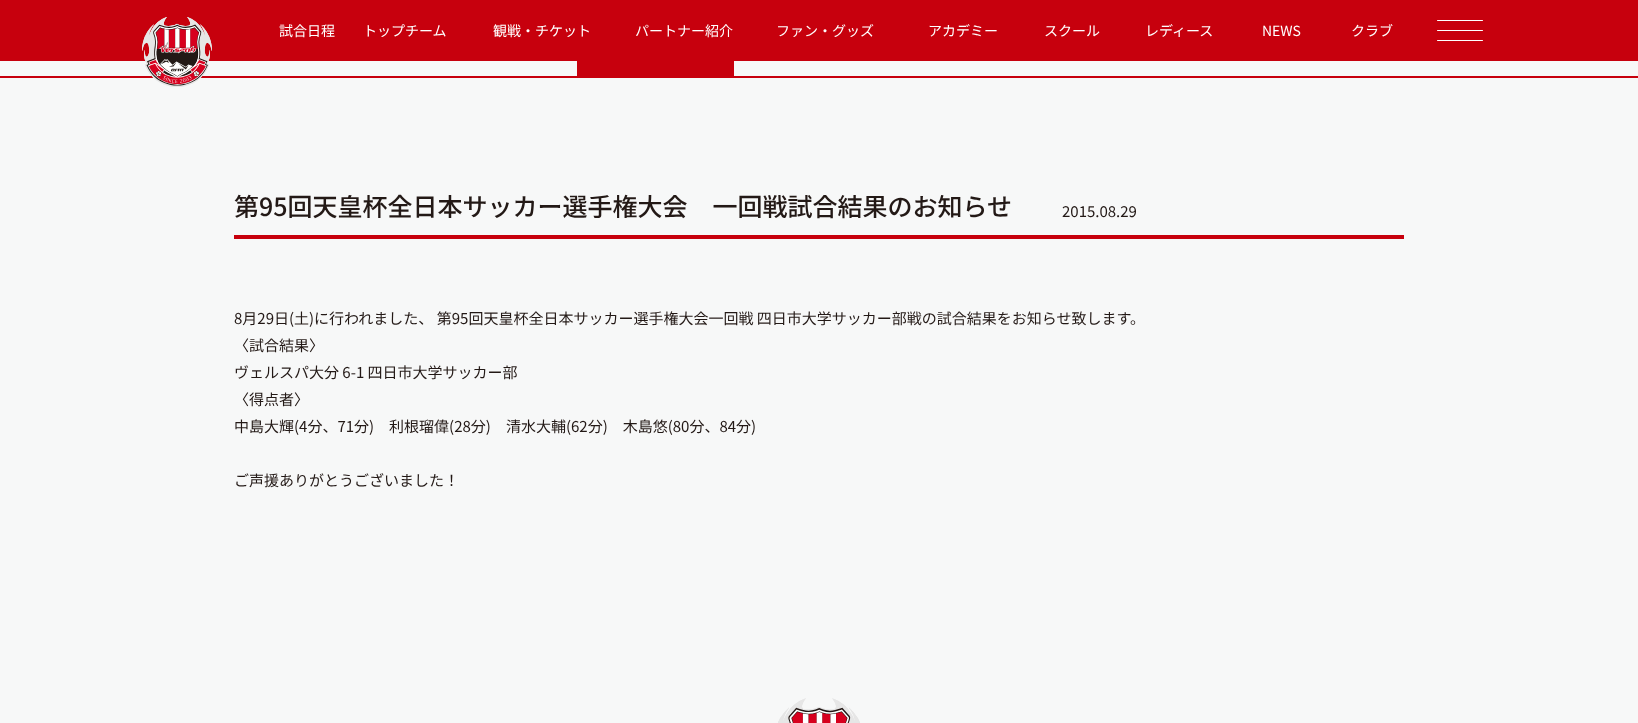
<svg xmlns="http://www.w3.org/2000/svg" width="1638" height="723">
<style>
.a{font:14px Noto Sans JP;fill:#fff}
.b{font:500 25px Noto Sans JP;fill:#231916}
.c{font:15px Noto Sans JP;fill:#231916}
</style>
<rect width="100%" height="100%" fill="#f7f8f8"/>
<path fill="#c7000d" d="M0 0h1638v61H0z"/>
<path fill="#c7000d" d="M0 76h1638v2H0z"/>
<image href="1.png" x="142" y="17" width="70" height="70"/>
<rect fill="#fff" x="1437" y="20" width="46" height="1" rx="0.5"/>
<rect fill="#fff" x="1437" y="30" width="46" height="1" rx="0.5"/>
<rect fill="#fff" x="1437" y="40" width="46" height="1" rx="0.5"/>
<path fill="#c7000d" d="M577 61h157v15H577z"/>
<path fill="#c7000d" d="M234 235h1170v4H234z"/>
<image href="2.png" x="778" y="698" width="82" height="25"/>
<text class="a" x="279" y="36">試合日程</text>
<text class="a" x="363" y="36">トップチーム</text>
<text class="a" x="493" y="36">観戦・チケット</text>
<text class="a" x="635" y="36">パートナー紹介</text>
<text class="a" x="776" y="36">ファン・グッズ</text>
<text class="a" x="928" y="36">アカデミー</text>
<text class="a" x="1044" y="36">スクール</text>
<text class="a" x="1145" y="36">レディース</text>
<text class="a" x="1262" y="36">NEWS</text>
<text class="a" x="1351" y="36">クラブ</text>
<text class="b" x="234" y="216">第95回天皇杯全日本サッカー選手権大会　一回戦試合結果のお知らせ</text>
<text class="c" x="1062" y="217">2015.08.29</text>
<text class="c" x="234" y="324">8月29日(土)に行われました、 第95回天皇杯全日本サッカー選手権大会一回戦 四日市大学サッカー部戦の試合結果をお知らせ致します。</text>
<text class="c" x="234" y="351">〈試合結果〉</text>
<text class="c" x="234" y="378">ヴェルスパ大分 6-1 四日市大学サッカー部</text>
<text class="c" x="234" y="405">〈得点者〉</text>
<text class="c" x="234" y="432">中島大輝(4分、71分)　利根瑠偉(28分)　清水大輔(62分)　木島悠(80分、84分)</text>
<text class="c" x="234" y="486">ご声援ありがとうございました！</text>
</svg>
